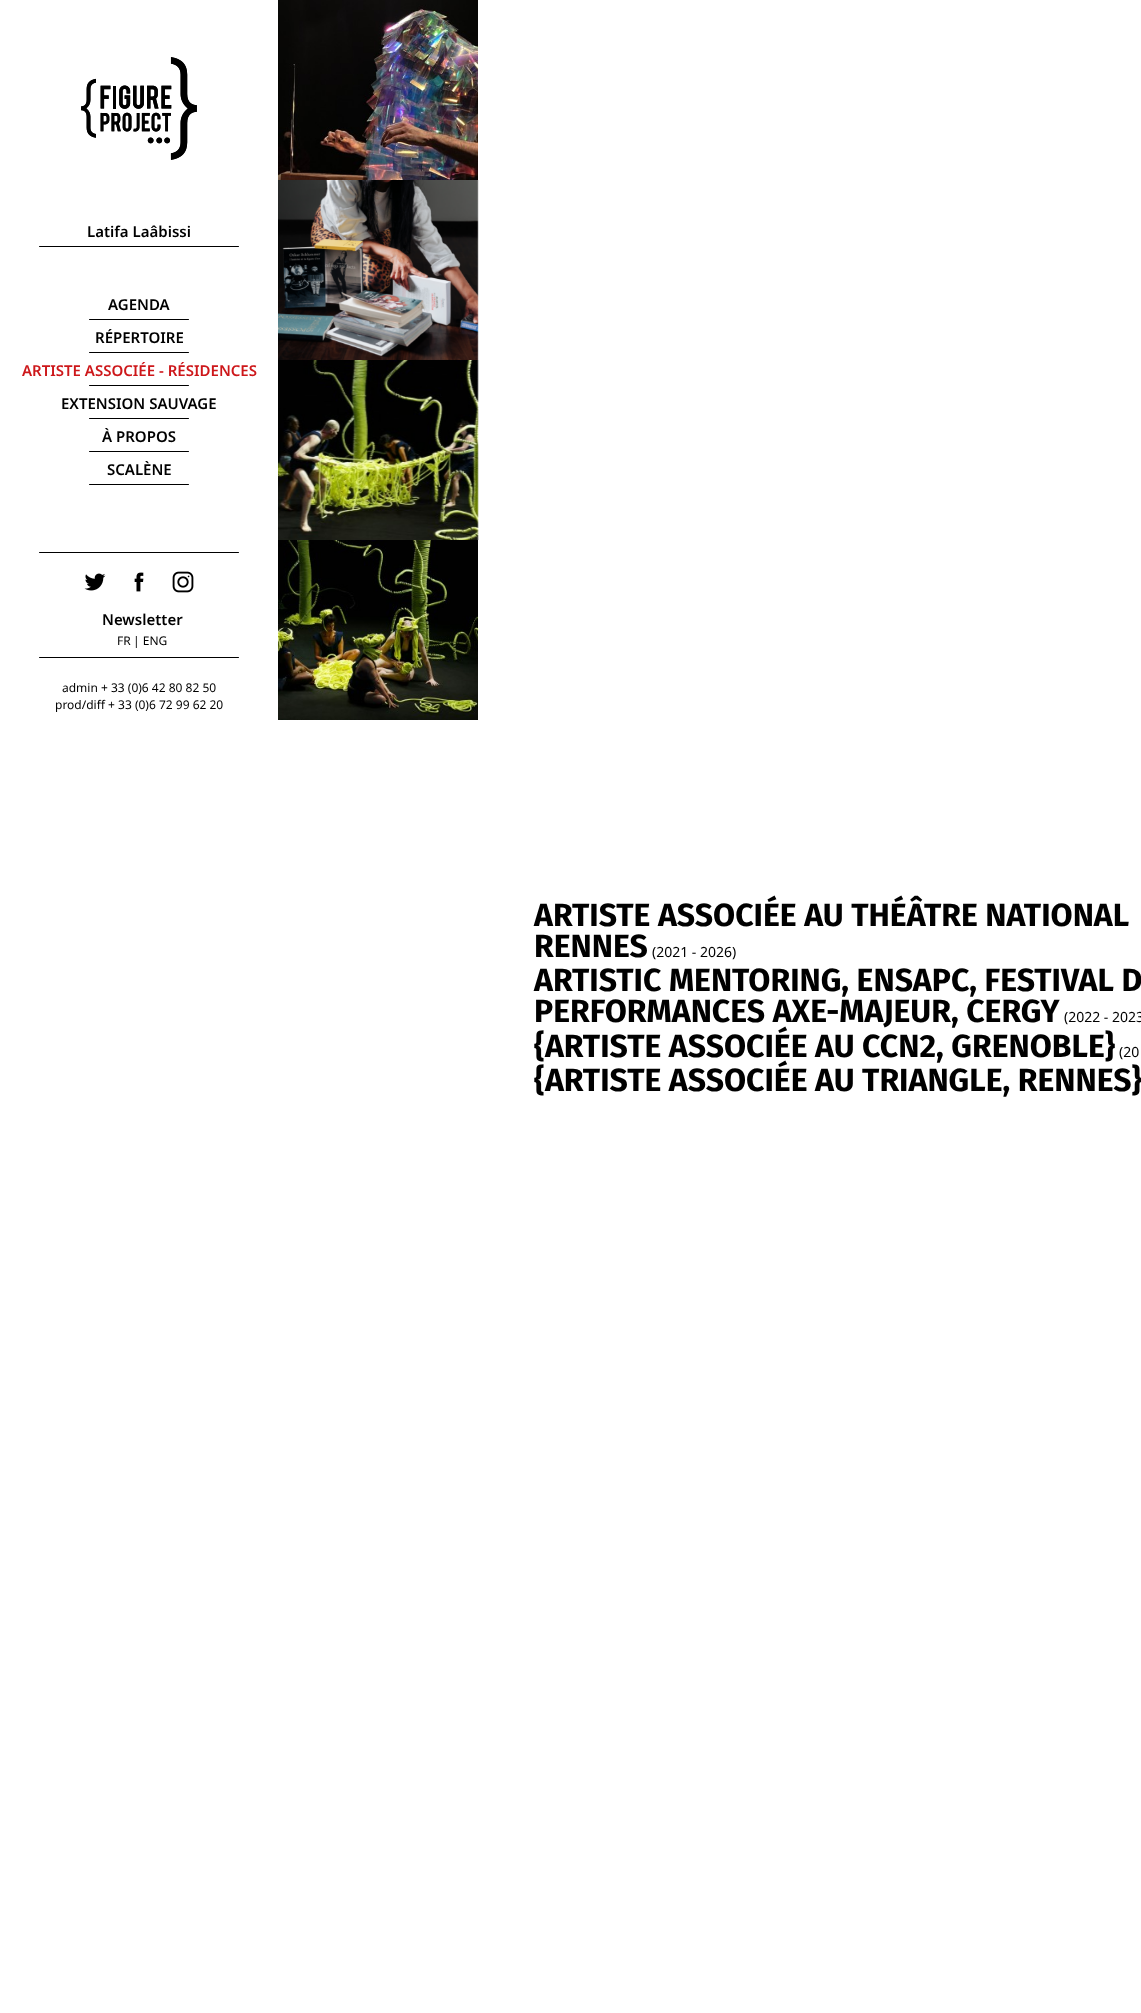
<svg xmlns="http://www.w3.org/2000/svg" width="1141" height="2013">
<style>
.a{font:600 15px Noto Sans;fill:#000}
.b{font:600 15px Noto Sans;fill:#cd171a}
.c{font:12px Noto Sans;fill:#000}
.d{font:bold 32px Fira Sans;fill:#000}
.e{font:14px Noto Sans;fill:#000}
</style>
<rect width="100%" height="100%" fill="#fff"/>
<image href="1.png" x="81" y="57" width="116" height="103"/>
<rect fill="#000" x="39" y="246" width="200" height="1" rx="0.5"/>
<rect fill="#000" x="89" y="319" width="100" height="1" rx="0.5"/>
<rect fill="#000" x="89" y="352" width="100" height="1" rx="0.5"/>
<rect fill="#000" x="89" y="385" width="100" height="1" rx="0.5"/>
<rect fill="#000" x="89" y="418" width="100" height="1" rx="0.5"/>
<rect fill="#000" x="89" y="451" width="100" height="1" rx="0.5"/>
<rect fill="#000" x="89" y="484" width="100" height="1" rx="0.5"/>
<rect fill="#000" x="39" y="552" width="200" height="1" rx="0.5"/>
<image href="2.png" x="84" y="573" width="22" height="18"/>
<image href="3.png" x="134" y="572" width="10" height="20"/>
<image href="4.png" x="172" y="571" width="22" height="22"/>
<rect fill="#000" x="39" y="657" width="200" height="1" rx="0.5"/>
<image href="5.png" x="278" y="0" width="200" height="180"/>
<image href="6.png" x="278" y="180" width="201" height="180"/>
<image href="7.png" x="278" y="360" width="201" height="180"/>
<image href="8.png" x="278" y="540" width="200" height="180"/>
<text class="a" x="87" y="237">Latifa Laâbissi</text>
<text class="a" x="108" y="310">AGENDA</text>
<text class="a" x="95" y="343">RÉPERTOIRE</text>
<text class="b" x="22" y="376">ARTISTE ASSOCIÉE - RÉSIDENCES</text>
<text class="a" x="61" y="409">EXTENSION SAUVAGE</text>
<text class="a" x="102" y="442">À PROPOS</text>
<text class="a" x="107" y="475">SCALÈNE</text>
<text class="a" x="102" y="625">Newsletter</text>
<text class="c" x="117" y="645">FR</text>
<text class="c" x="133" y="645">| ENG</text>
<text class="c" x="62" y="692">admin + 33 (0)6 42 80 82 50</text>
<text class="c" x="55" y="709">prod/diff + 33 (0)6 72 99 62 20</text>
<text class="d" x="534" y="926">ARTISTE ASSOCIÉE AU THÉÂTRE NATIONAL</text>
<text class="d" x="534" y="957">RENNES</text>
<text class="e" x="652" y="957">(2021 - 2026)</text>
<text class="d" x="534" y="991">ARTISTIC MENTORING, ENSAPC, FESTIVAL D</text>
<text class="d" x="534" y="1022">PERFORMANCES AXE-MAJEUR, CERGY</text>
<text class="e" x="1064" y="1022">(2022 - 2023</text>
<text class="d" x="534" y="1057">{ARTISTE ASSOCIÉE AU CCN2, GRENOBLE}</text>
<text class="e" x="1119" y="1057">(20</text>
<text class="d" x="534" y="1091">{ARTISTE ASSOCIÉE AU TRIANGLE, RENNES}</text>
</svg>
